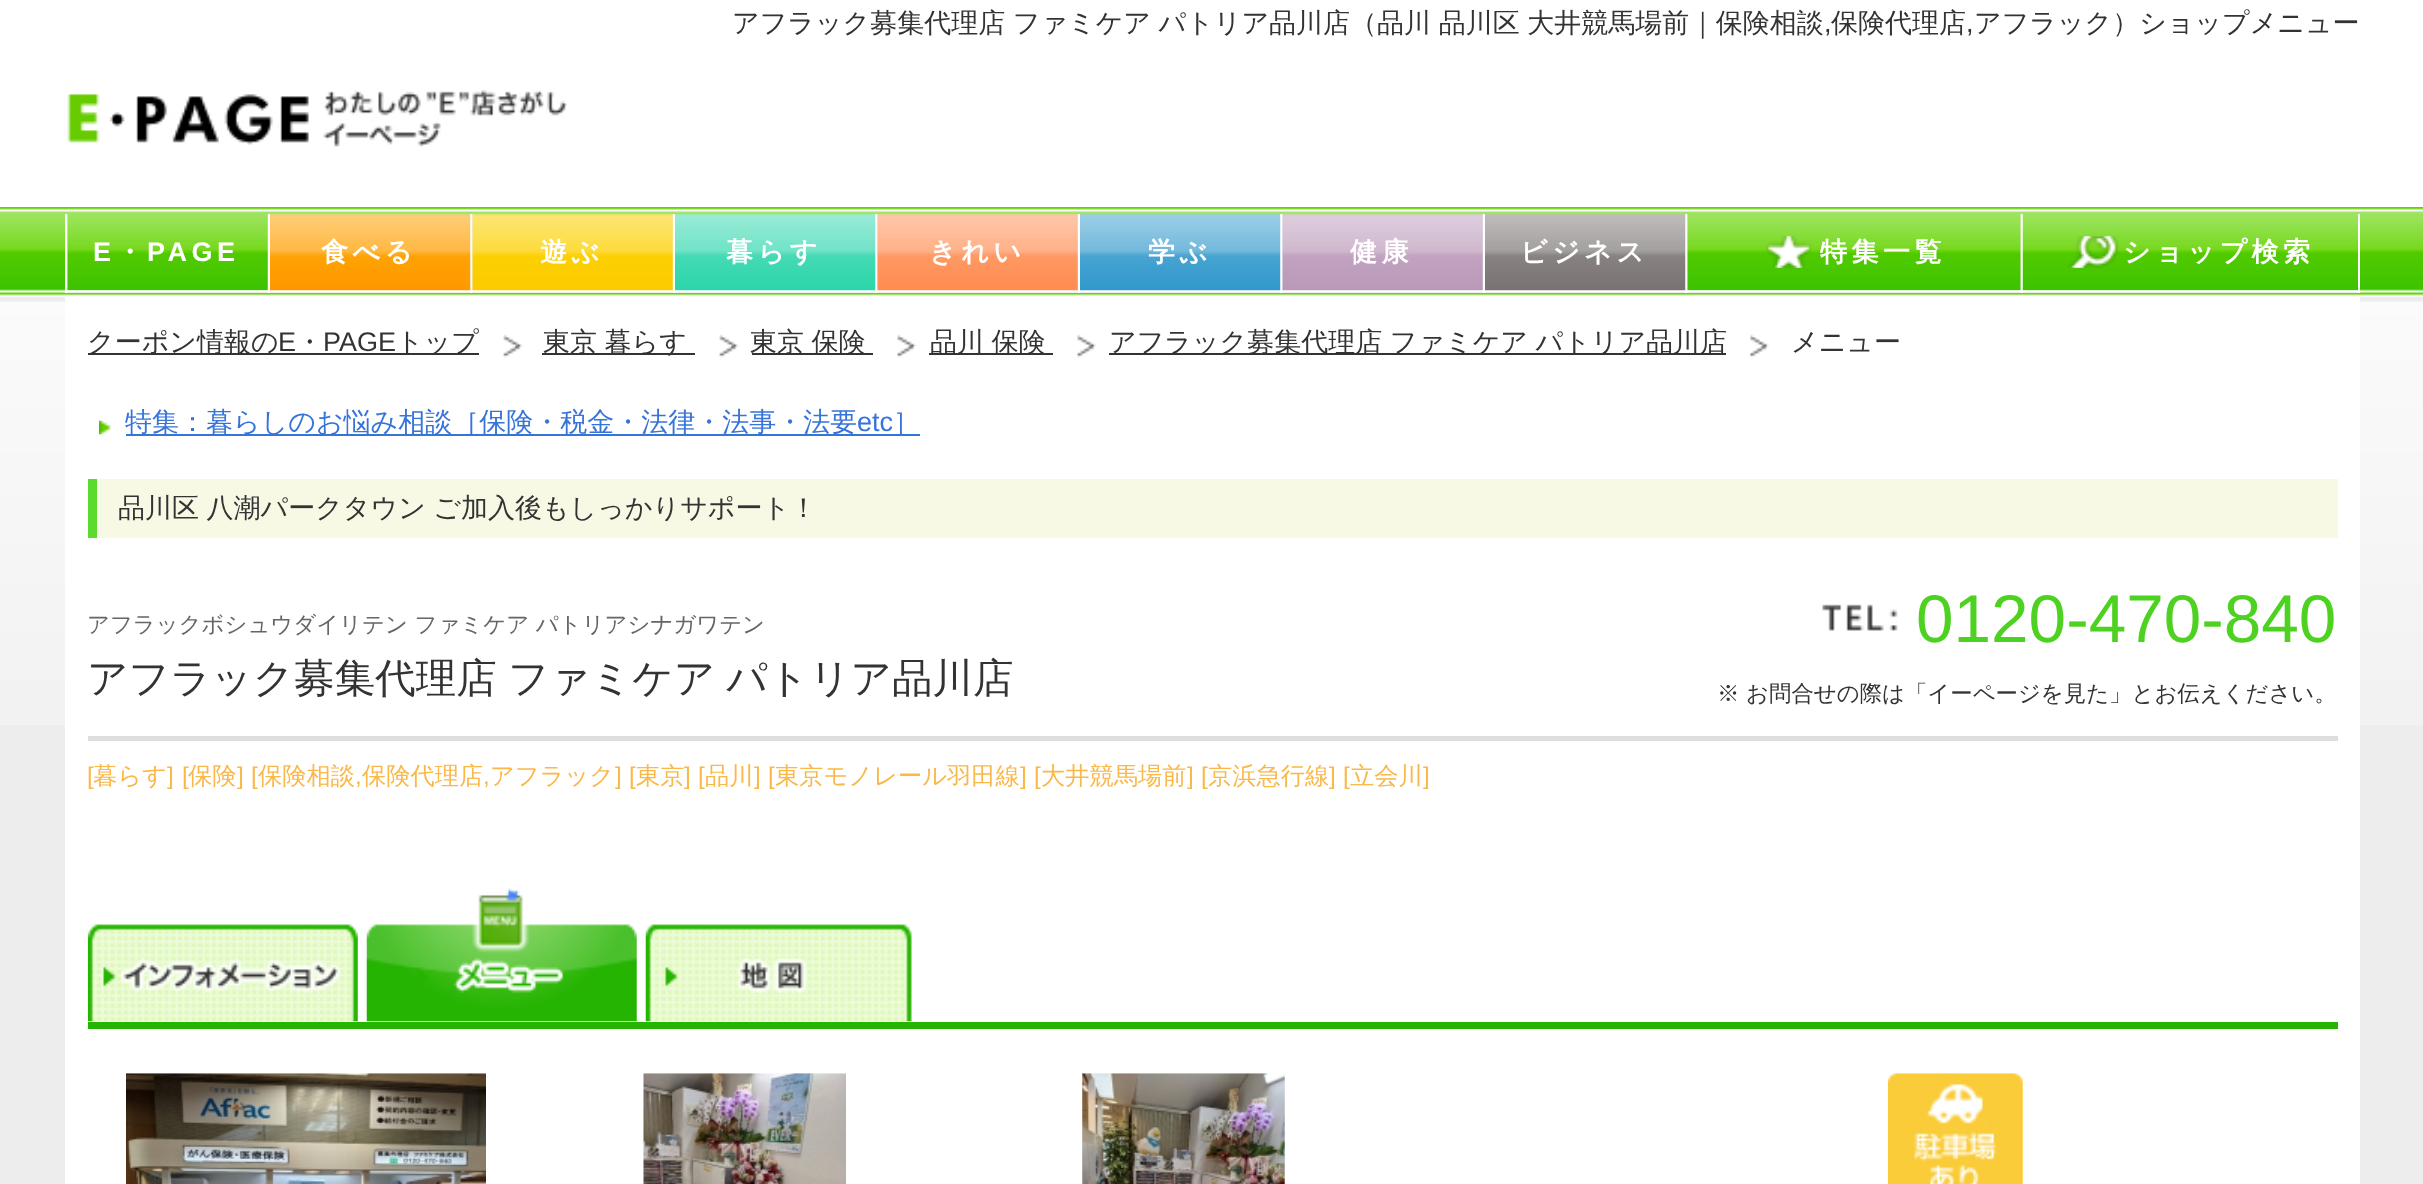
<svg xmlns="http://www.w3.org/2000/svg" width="2423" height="1184">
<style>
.a{font:500 27px WenQuanYi Zen Hei;fill:#333}
.b{font:27px Liberation Sans;fill:#333}
.c{font:bold 27px Liberation Sans;letter-spacing:4.5px;fill:#fff}
.d{font:bold 27px WenQuanYi Zen Hei;letter-spacing:4.5px;fill:#fff}
.e{font:500 27px WenQuanYi Zen Hei;fill:#3774d9}
.f{font:27px Liberation Sans;fill:#3774d9}
.g{font:500 22.4px WenQuanYi Zen Hei;fill:#666}
.h{font:500 40.5px WenQuanYi Zen Hei;fill:#333}
.i{font:67.5px Liberation Sans;fill:#4ed221}
.j{font:500 22.4px WenQuanYi Zen Hei;fill:#333}
.k{font:24.25px Liberation Sans;fill:#fab849}
.l{font:500 24.25px WenQuanYi Zen Hei;fill:#fab849}
</style>
<rect width="100%" height="100%" fill="#ededed"/>
<image href="1.png" x="0" y="301" width="2423" height="424"/>
<path fill="#fff" d="M0 0h2423v207H0z"/>
<image href="2.png" x="67" y="94" width="242" height="51"/>
<image href="3.png" x="323" y="90" width="244" height="57"/>
<image href="4.png" x="0" y="207" width="2423" height="90"/>
<path fill="#eee" d="M67 214h201v79H67z"/>
<path fill="#fff" d="M65 290h405v2H65z"/>
<path fill="#fff" d="M65 214h2v79H65z"/>
<image href="5.png" x="67" y="214" width="201" height="77"/>
<path fill="#eee" d="M270 292h200v1H270z"/>
<path fill="#fff" d="M268 214h2v79H268z"/>
<path fill="#eee" d="M472 214h201v79H472z"/>
<path fill="#fff" d="M470 290h405v2H470z"/>
<path fill="#fff" d="M470 214h2v79H470z"/>
<image href="6.png" x="270" y="213" width="201" height="78"/>
<image href="7.png" x="472" y="213" width="201" height="78"/>
<path fill="#eee" d="M675 292h200v1H675z"/>
<path fill="#fff" d="M673 214h2v79H673z"/>
<path fill="#eee" d="M877 214h201v79H877z"/>
<path fill="#fff" d="M875 290h405v2H875z"/>
<path fill="#fff" d="M875 214h2v79H875z"/>
<image href="8.png" x="675" y="213" width="201" height="78"/>
<image href="9.png" x="877" y="213" width="201" height="78"/>
<path fill="#eee" d="M1080 292h200v1H1080z"/>
<path fill="#fff" d="M1078 214h2v79H1078z"/>
<path fill="#eee" d="M1282 214h201v79H1282z"/>
<path fill="#fff" d="M1280 290h405v2H1280z"/>
<path fill="#fff" d="M1280 214h2v79H1280z"/>
<image href="10.png" x="1080" y="213" width="201" height="78"/>
<image href="11.png" x="1282" y="213" width="201" height="78"/>
<path fill="#eee" d="M1485 292h200v1H1485z"/>
<path fill="#fff" d="M1483 214h2v79H1483z"/>
<path fill="#eee" d="M1687 214h334v79H1687z"/>
<path fill="#fff" d="M1685 290h336v2H1685z"/>
<path fill="#fff" d="M1685 214h2v79H1685z"/>
<image href="12.png" x="1485" y="213" width="201" height="78"/>
<image href="13.png" x="1687" y="214" width="334" height="77"/>
<image href="14.png" x="1766" y="236" width="46" height="32"/>
<path fill="#eee" d="M2023 292h335v1H2023z"/>
<path fill="#fff" d="M2358 214h2v79H2358z"/>
<path fill="#fff" d="M2021 290h339v2H2021z"/>
<path fill="#fff" d="M2021 214h2v79H2021z"/>
<image href="15.png" x="2022" y="214" width="336" height="77"/>
<image href="16.png" x="2067" y="236" width="52" height="32"/>
<path fill="#fff" d="M65 297h2295v887H65z"/>
<path fill="#333" d="M88 353h391v2H88z"/>
<image href="17.png" x="503" y="334" width="20" height="24"/>
<path fill="#333" d="M542 353h153v2H542z"/>
<image href="18.png" x="719" y="334" width="20" height="24"/>
<path fill="#333" d="M752 353h121v2H752z"/>
<image href="19.png" x="897" y="334" width="20" height="24"/>
<path fill="#333" d="M929 353h124v2H929z"/>
<image href="19.png" x="1077" y="334" width="20" height="24"/>
<path fill="#333" d="M1109 353h617v2H1109z"/>
<image href="20.png" x="1750" y="334" width="19" height="24"/>
<image href="21.png" x="99" y="420" width="12" height="15"/>
<path fill="#3774d9" d="M126 434h794v2H126z"/>
<path fill="#f7f9e4" d="M97 479h2241v59H97z"/>
<path fill="#5cda2d" d="M88 479h9v59H88z"/>
<path fill="#dedede" d="M88 736h2250v5H88z"/>
<image href="22.png" x="1822" y="604" width="76" height="27"/>
<path fill="#25b401" d="M88 1022h2250v7H88z"/>
<image href="23.png" x="87" y="924" width="271" height="98"/>
<image href="24.png" x="366" y="888" width="271" height="134"/>
<image href="25.png" x="645" y="924" width="267" height="98"/>
<image href="26.png" x="126" y="1073" width="360" height="111"/>
<image href="27.png" x="643" y="1073" width="203" height="111"/>
<image href="28.png" x="1082" y="1073" width="203" height="111"/>
<image href="29.png" x="1887" y="1073" width="136" height="111"/>
<text class="a" x="732" y="32" word-spacing="-0.5">アフラック募集代理店 ファミケア パトリア品川店（品川 品川区 大井競馬場前｜保険相談</text>
<text class="b" x="1824" y="32">,</text>
<text class="a" x="1831" y="32">保険代理店</text>
<text class="b" x="1966" y="32">,</text>
<text class="a" x="1974" y="32">アフラック）ショップメニュー</text>
<text class="c" x="93" y="261">E</text>
<text class="d" x="116" y="261">・</text>
<text class="c" x="147" y="261">PAGE</text>
<text class="d" x="321" y="261">食べる</text>
<text class="d" x="540" y="261">遊ぶ</text>
<text class="d" x="726" y="261">暮らす</text>
<text class="d" x="929" y="261">きれい</text>
<text class="d" x="1148" y="261">学ぶ</text>
<text class="d" x="1350" y="261">健康</text>
<text class="d" x="1520" y="261">ビジネス</text>
<text class="d" x="1820" y="261">特集一覧</text>
<text class="d" x="2123" y="261">ショップ検索</text>
<text class="a" x="87" y="351">クーポン情報の</text>
<text class="b" x="278" y="351">E</text>
<text class="a" x="296" y="351">・</text>
<text class="b" x="323" y="351">PAGE</text>
<text class="a" x="396" y="351">トップ</text>
<text class="a" x="543" y="351" word-spacing="-0.5">東京 暮らす</text>
<text class="a" x="750" y="351" word-spacing="-0.5">東京 保険</text>
<text class="a" x="930" y="351" word-spacing="-0.5">品川 保険</text>
<text class="a" x="1109" y="351" word-spacing="-0.5">アフラック募集代理店 ファミケア パトリア品川店</text>
<text class="a" x="1791" y="351">メニュー</text>
<text class="e" x="125" y="431">特集：暮らしのお悩み相談［保険・税金・法律・法事・法要</text>
<text class="f" x="857" y="431">etc</text>
<text class="e" x="893" y="431">］</text>
<text class="a" x="118" y="517" word-spacing="-0.5">品川区 八潮パークタウン ご加入後もしっかりサポート！</text>
<text class="g" x="87" y="632">アフラックボシュウダイリテン ファミケア パトリアシナガワテン</text>
<text class="h" x="87" y="692" word-spacing="-1">アフラック募集代理店 ファミケア パトリア品川店</text>
<text class="i" x="1916" y="642">0120-470-840</text>
<text class="j" x="1717" y="701">※ お問合せの際は「イーページを見た」とお伝えください。</text>
<text class="k" x="87" y="784">[</text>
<text class="l" x="93" y="784">暮らす</text>
<text class="k" x="167" y="784">]</text>
<text class="k" x="182" y="784">[</text>
<text class="l" x="188" y="784">保険</text>
<text class="k" x="237" y="784">]</text>
<text class="k" x="251" y="784">[</text>
<text class="l" x="258" y="784">保険相談</text>
<text class="k" x="355" y="784">,</text>
<text class="l" x="362" y="784">保険代理店</text>
<text class="k" x="483" y="784">,</text>
<text class="l" x="490" y="784">アフラック</text>
<text class="k" x="615" y="784">]</text>
<text class="k" x="629" y="784">[</text>
<text class="l" x="636" y="784">東京</text>
<text class="k" x="684" y="784">]</text>
<text class="k" x="698" y="784">[</text>
<text class="l" x="705" y="784">品川</text>
<text class="k" x="754" y="784">]</text>
<text class="k" x="768" y="784">[</text>
<text class="l" x="775" y="784">東京モノレール羽田線</text>
<text class="k" x="1020" y="784">]</text>
<text class="k" x="1034" y="784">[</text>
<text class="l" x="1041" y="784">大井競馬場前</text>
<text class="k" x="1187" y="784">]</text>
<text class="k" x="1201" y="784">[</text>
<text class="l" x="1208" y="784">京浜急行線</text>
<text class="k" x="1329" y="784">]</text>
<text class="k" x="1343" y="784">[</text>
<text class="l" x="1350" y="784">立会川</text>
<text class="k" x="1423" y="784">]</text>
</svg>
